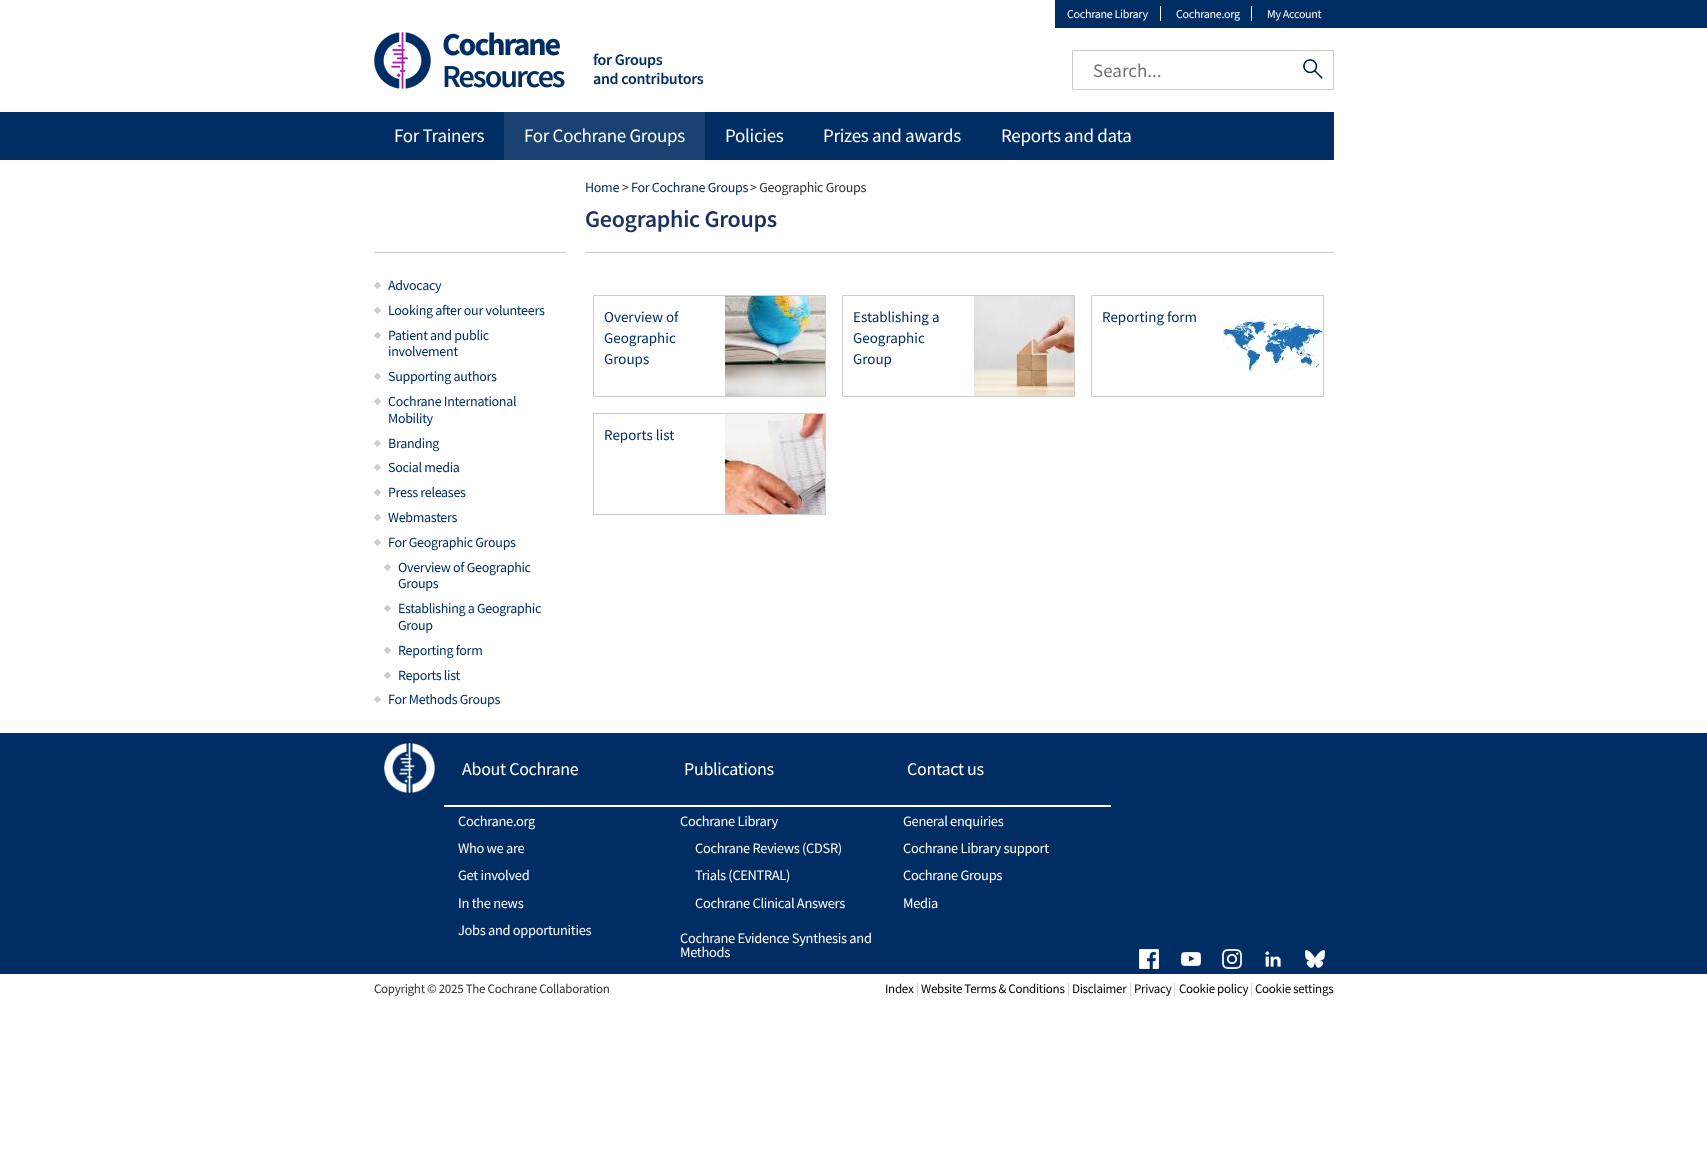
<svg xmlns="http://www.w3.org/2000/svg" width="1707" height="1176">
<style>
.a{font:12px Source Sans Pro;letter-spacing:-0.3px;fill:#fff}
.b{font:bold 32px Source Sans Pro;letter-spacing:-2px;fill:#002d64}
.c{font:600 32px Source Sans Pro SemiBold;letter-spacing:-2px;fill:#002d64}
.d{font:600 16px Source Sans Pro SemiBold;letter-spacing:-0.3px;fill:#002d64}
.e{font:19px Source Sans Pro;fill:#757575}
.f{font:19px Source Sans Pro;letter-spacing:-0.3px;fill:#fff}
.g{font:14px Source Sans Pro;letter-spacing:-0.3px;fill:#002d64}
.h{font:14px Source Sans Pro;letter-spacing:-0.3px;fill:#333}
.i{font:600 24px Source Sans Pro SemiBold;letter-spacing:-0.3px;fill:#1e3262}
.j{font:15px Source Sans Pro;fill:#002d64}
.k{font:18px Source Sans Pro;letter-spacing:-0.3px;fill:#fff}
.l{font:14.4px Source Sans Pro;letter-spacing:-0.3px;fill:#fff}
.m{font:13px Source Sans Pro;letter-spacing:-0.3px;fill:#333}
.n{font:13px Source Sans Pro;letter-spacing:-0.3px;fill:#000}
.o{font:13px Source Sans Pro;letter-spacing:-0.3px;fill:#ccc}
</style>
<rect width="100%" height="100%" fill="#fff"/>
<path fill="#002d64" d="M1055 0h652v28H1055z"/>
<path fill="#fff" d="M1160 6h1v15H1160z"/>
<path fill="#fff" d="M1251 6h1v15H1251z"/>
<image href="1.png" x="374" y="32" width="57" height="57"/>
<path fill="none" stroke="#ccc" d="M1072.5 50.5h261v39H1072.5z"/>
<image href="2.png" x="1303" y="59" width="20" height="20"/>
<path fill="#002d64" d="M0 112h1334v48H0z"/>
<path fill="#194273" d="M504 112h201v48H504z"/>
<path fill="#ccc" d="M374 252h192v1H374z"/>
<image href="3.png" x="374" y="282" width="7" height="7"/>
<image href="3.png" x="374" y="307" width="7" height="7"/>
<image href="3.png" x="374" y="332" width="7" height="7"/>
<image href="3.png" x="374" y="373" width="7" height="7"/>
<image href="3.png" x="374" y="398" width="7" height="7"/>
<image href="3.png" x="374" y="440" width="7" height="7"/>
<image href="3.png" x="374" y="464" width="7" height="7"/>
<image href="3.png" x="374" y="489" width="7" height="7"/>
<image href="3.png" x="374" y="514" width="7" height="7"/>
<image href="3.png" x="374" y="539" width="7" height="7"/>
<image href="3.png" x="384" y="564" width="7" height="7"/>
<image href="3.png" x="384" y="605" width="7" height="7"/>
<image href="3.png" x="384" y="647" width="7" height="7"/>
<image href="3.png" x="384" y="672" width="7" height="7"/>
<image href="3.png" x="374" y="696" width="7" height="7"/>
<path fill="#ccc" d="M585 252h749v1H585z"/>
<path fill="none" stroke="#ccc" d="M593.5 295.5h232v101H593.5z"/>
<image href="4.png" x="725" y="296" width="100" height="100"/>
<path fill="none" stroke="#ccc" d="M842.5 295.5h232v101H842.5z"/>
<image href="5.png" x="974" y="296" width="100" height="100"/>
<path fill="none" stroke="#ccc" d="M1091.5 295.5h232v101H1091.5z"/>
<image href="6.png" x="1223" y="312" width="100" height="64"/>
<path fill="none" stroke="#ccc" d="M593.5 413.5h232v101H593.5z"/>
<image href="7.png" x="725" y="414" width="100" height="100"/>
<path fill="#002d64" d="M0 733h1707v241H0z"/>
<image href="8.png" x="384" y="743" width="51" height="50"/>
<path fill="#fff" d="M444 805h667v2H444z"/>
<image href="9.png" x="1139" y="949" width="20" height="20"/>
<image href="10.png" x="1181" y="952" width="20" height="14"/>
<image href="11.png" x="1222" y="949" width="20" height="20"/>
<image href="12.png" x="1265" y="951" width="16" height="16"/>
<image href="13.png" x="1305" y="950" width="20" height="18"/>
<text class="a" x="1067" y="18">Cochrane Library</text>
<text class="a" x="1176" y="18">Cochrane.org</text>
<text class="a" x="1267" y="18">My Account</text>
<text class="b" x="442" y="55">Cochrane</text>
<text class="c" x="442" y="87">Resources</text>
<text class="d" x="593" y="65">for Groups</text>
<text class="d" x="593" y="84">and contributors</text>
<text class="e" x="1093" y="77">Search...</text>
<text class="f" x="394" y="142">For Trainers</text>
<text class="f" x="524" y="142">For Cochrane Groups</text>
<text class="f" x="725" y="142">Policies</text>
<text class="f" x="823" y="142">Prizes and awards</text>
<text class="f" x="1001" y="142">Reports and data</text>
<text class="g" x="585" y="192">Home</text>
<text class="h" x="622" y="192">&gt;</text>
<text class="g" x="631" y="192">For Cochrane Groups</text>
<text class="h" x="750" y="192">&gt; Geographic Groups</text>
<text class="i" x="585" y="227">Geographic Groups</text>
<text class="g" x="388" y="290">Advocacy</text>
<text class="g" x="388" y="315">Looking after our volunteers</text>
<text class="g" x="388" y="340">Patient and public</text>
<text class="g" x="388" y="356">involvement</text>
<text class="g" x="388" y="381">Supporting authors</text>
<text class="g" x="388" y="406">Cochrane International</text>
<text class="g" x="388" y="423">Mobility</text>
<text class="g" x="388" y="448">Branding</text>
<text class="g" x="388" y="472">Social media</text>
<text class="g" x="388" y="497">Press releases</text>
<text class="g" x="388" y="522">Webmasters</text>
<text class="g" x="388" y="547">For Geographic Groups</text>
<text class="g" x="398" y="572">Overview of Geographic</text>
<text class="g" x="398" y="588">Groups</text>
<text class="g" x="398" y="613">Establishing a Geographic</text>
<text class="g" x="398" y="630">Group</text>
<text class="g" x="398" y="655">Reporting form</text>
<text class="g" x="398" y="680">Reports list</text>
<text class="g" x="388" y="704">For Methods Groups</text>
<text class="j" x="604" y="322">Overview of</text>
<text class="j" x="604" y="343">Geographic</text>
<text class="j" x="604" y="364">Groups</text>
<text class="j" x="853" y="322">Establishing a</text>
<text class="j" x="853" y="343">Geographic</text>
<text class="j" x="853" y="364">Group</text>
<text class="j" x="1102" y="322">Reporting form</text>
<text class="j" x="604" y="440">Reports list</text>
<text class="k" x="462" y="775">About Cochrane</text>
<text class="l" x="458" y="826">Cochrane.org</text>
<text class="l" x="458" y="853">Who we are</text>
<text class="l" x="458" y="880">Get involved</text>
<text class="l" x="458" y="908">In the news</text>
<text class="l" x="458" y="935">Jobs and opportunities</text>
<text class="k" x="684" y="775">Publications</text>
<text class="l" x="680" y="826">Cochrane Library</text>
<text class="l" x="695" y="853">Cochrane Reviews (CDSR)</text>
<text class="l" x="695" y="880">Trials (CENTRAL)</text>
<text class="l" x="695" y="908">Cochrane Clinical Answers</text>
<text class="l" x="680" y="943">Cochrane Evidence Synthesis and</text>
<text class="l" x="680" y="957">Methods</text>
<text class="k" x="907" y="775">Contact us</text>
<text class="l" x="903" y="826">General enquiries</text>
<text class="l" x="903" y="853">Cochrane Library support</text>
<text class="l" x="903" y="880">Cochrane Groups</text>
<text class="l" x="903" y="908">Media</text>
<text class="m" x="374" y="993">Copyright © 2025 The Cochrane Collaboration</text>
<text class="n" x="885" y="993">Index</text>
<text class="o" x="916" y="993">|</text>
<text class="n" x="921" y="993">Website Terms &amp; Conditions</text>
<text class="o" x="1067" y="993">|</text>
<text class="n" x="1072" y="993">Disclaimer</text>
<text class="o" x="1129" y="993">|</text>
<text class="n" x="1134" y="993">Privacy</text>
<text class="o" x="1173" y="993">|</text>
<text class="n" x="1179" y="993">Cookie policy</text>
<text class="o" x="1250" y="993">|</text>
<text class="n" x="1255" y="993">Cookie settings</text>
</svg>
